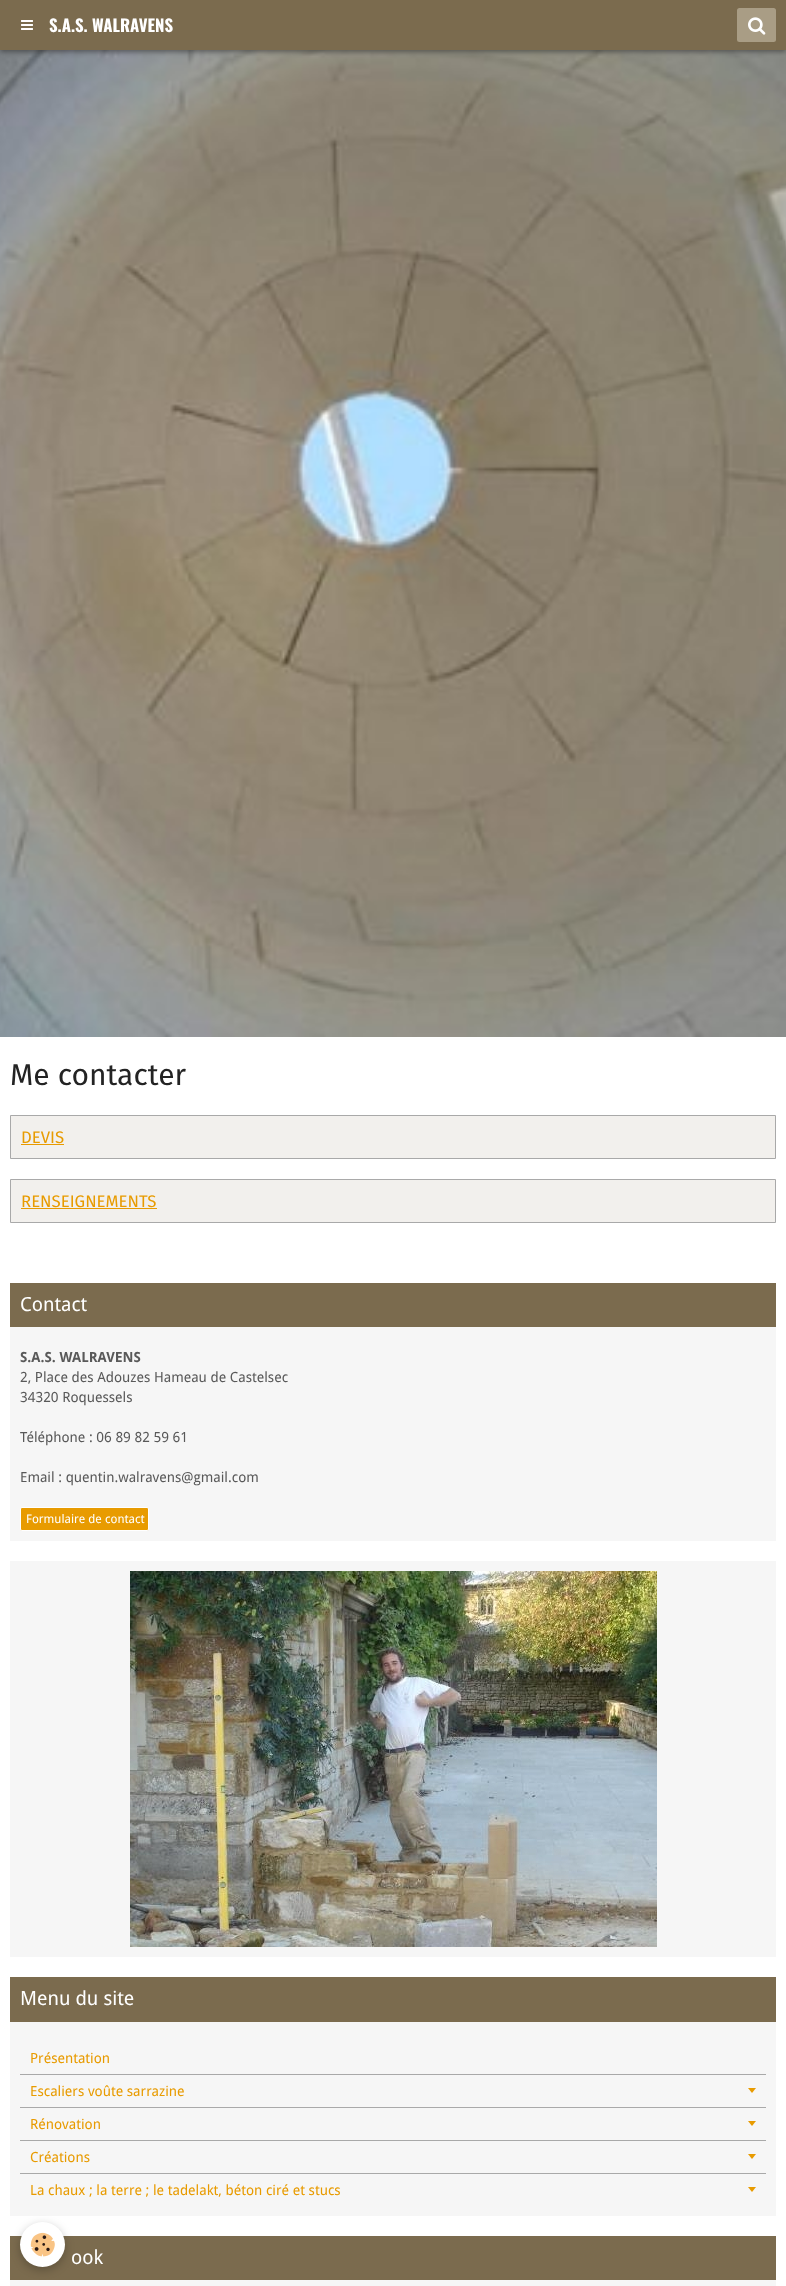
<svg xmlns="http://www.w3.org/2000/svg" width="786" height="2286">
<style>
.a{font:bold 16.75px Oswald;fill:#fff}
.b{font:30px Fira Sans;fill:#232323}
.c{font:16.75px Fira Sans;fill:#e89b00}
.d{font:19.5px Droid Sans;fill:#fff}
.e{font:bold 14px Droid Sans;fill:#595959}
.f{font:14px Droid Sans;fill:#595959}
.g{font:12px Droid Sans;fill:#fff}
.h{font:14px Droid Sans;fill:#e89b00}
</style>
<rect width="100%" height="100%" fill="#fff"/>
<image href="3.png" x="0" y="50" width="786" height="987"/>
<path fill="#2d2d2d91" filter="blur(2.5px)" d="M0 2h786v50H0z"/>
<path fill="#7b6b4e" d="M0 0h786v50H0z"/>
<image href="1.png" x="21" y="20" width="12" height="10"/>
<rect fill="#a99d85" x="737" y="8" width="39" height="34" rx="2.5"/>
<image href="2.png" x="748" y="17" width="18" height="18"/>
<path fill="#f2f0ed" stroke="#a9a9a9" d="M10.5 1115.5h765v43H10.5z"/>
<path fill="#e89b00" d="M21 1144h43v1H21z"/>
<path fill="#f2f0ed" stroke="#a9a9a9" d="M10.5 1179.5h765v43H10.5z"/>
<path fill="#e89b00" d="M21 1208h136v1H21z"/>
<path fill="#f6f6f6" d="M10 1327h766v214H10z"/>
<path fill="#7b6b4e" d="M10 1283h766v44H10z"/>
<rect fill="#e89b00" stroke="#fff" x="20.5" y="1507.5" width="128" height="23" rx="1.5"/>
<path fill="#f6f6f6" d="M10 1561h766v396H10z"/>
<image href="4.png" x="130" y="1571" width="527" height="376"/>
<path fill="#f6f6f6" d="M10 2022h766v194H10z"/>
<path fill="#7b6b4e" d="M10 1977h766v45H10z"/>
<path fill="#a9a9a9" d="M20 2074h746v1H20z"/>
<path fill="#a9a9a9" d="M20 2107h746v1H20z"/>
<path fill="#e89b00" d="M748 2088h8l-4 5z"/>
<path fill="#a9a9a9" d="M20 2140h746v1H20z"/>
<path fill="#e89b00" d="M748 2121h8l-4 5z"/>
<path fill="#a9a9a9" d="M20 2173h746v1H20z"/>
<path fill="#e89b00" d="M748 2154h8l-4 5z"/>
<path fill="#e89b00" d="M748 2187h8l-4 5z"/>
<path fill="#f6f6f6" d="M10 2280h766v6H10z"/>
<path fill="#7b6b4e" d="M10 2236h766v44H10z"/>
<rect fill="#0000003d" filter="blur(5px)" x="20" y="2225" width="45" height="45" rx="22.5"/>
<circle fill="#fff" cx="42.5" cy="2244.5" r="22.5"/>
<image href="5.png" x="30" y="2232" width="25" height="25"/>
<text class="a" x="49" y="32">S.A.S. WALRAVENS</text>
<text class="b" x="10" y="1085">Me contacter</text>
<text class="c" x="21" y="1143">DEVIS</text>
<text class="c" x="21" y="1207">RENSEIGNEMENTS</text>
<text class="d" x="20" y="1311">Contact</text>
<text class="e" x="20" y="1362">S.A.S. WALRAVENS</text>
<text class="f" x="20" y="1382">2, Place des Adouzes Hameau de Castelsec</text>
<text class="f" x="20" y="1402">34320 Roquessels</text>
<text class="f" x="20" y="1442">Téléphone : 06 89 82 59 61</text>
<text class="f" x="20" y="1482">Email : quentin.walravens@gmail.com</text>
<text class="g" x="26" y="1523">Formulaire de contact</text>
<text class="d" x="20" y="2005">Menu du site</text>
<text class="h" x="30" y="2063">Présentation</text>
<text class="h" x="30" y="2096">Escaliers voûte sarrazine</text>
<text class="h" x="30" y="2129">Rénovation</text>
<text class="h" x="30" y="2162">Créations</text>
<text class="h" x="30" y="2195">La chaux ; la terre ; le tadelakt, béton ciré et stucs</text>
<text class="d" x="71" y="2264">ook</text>
</svg>
